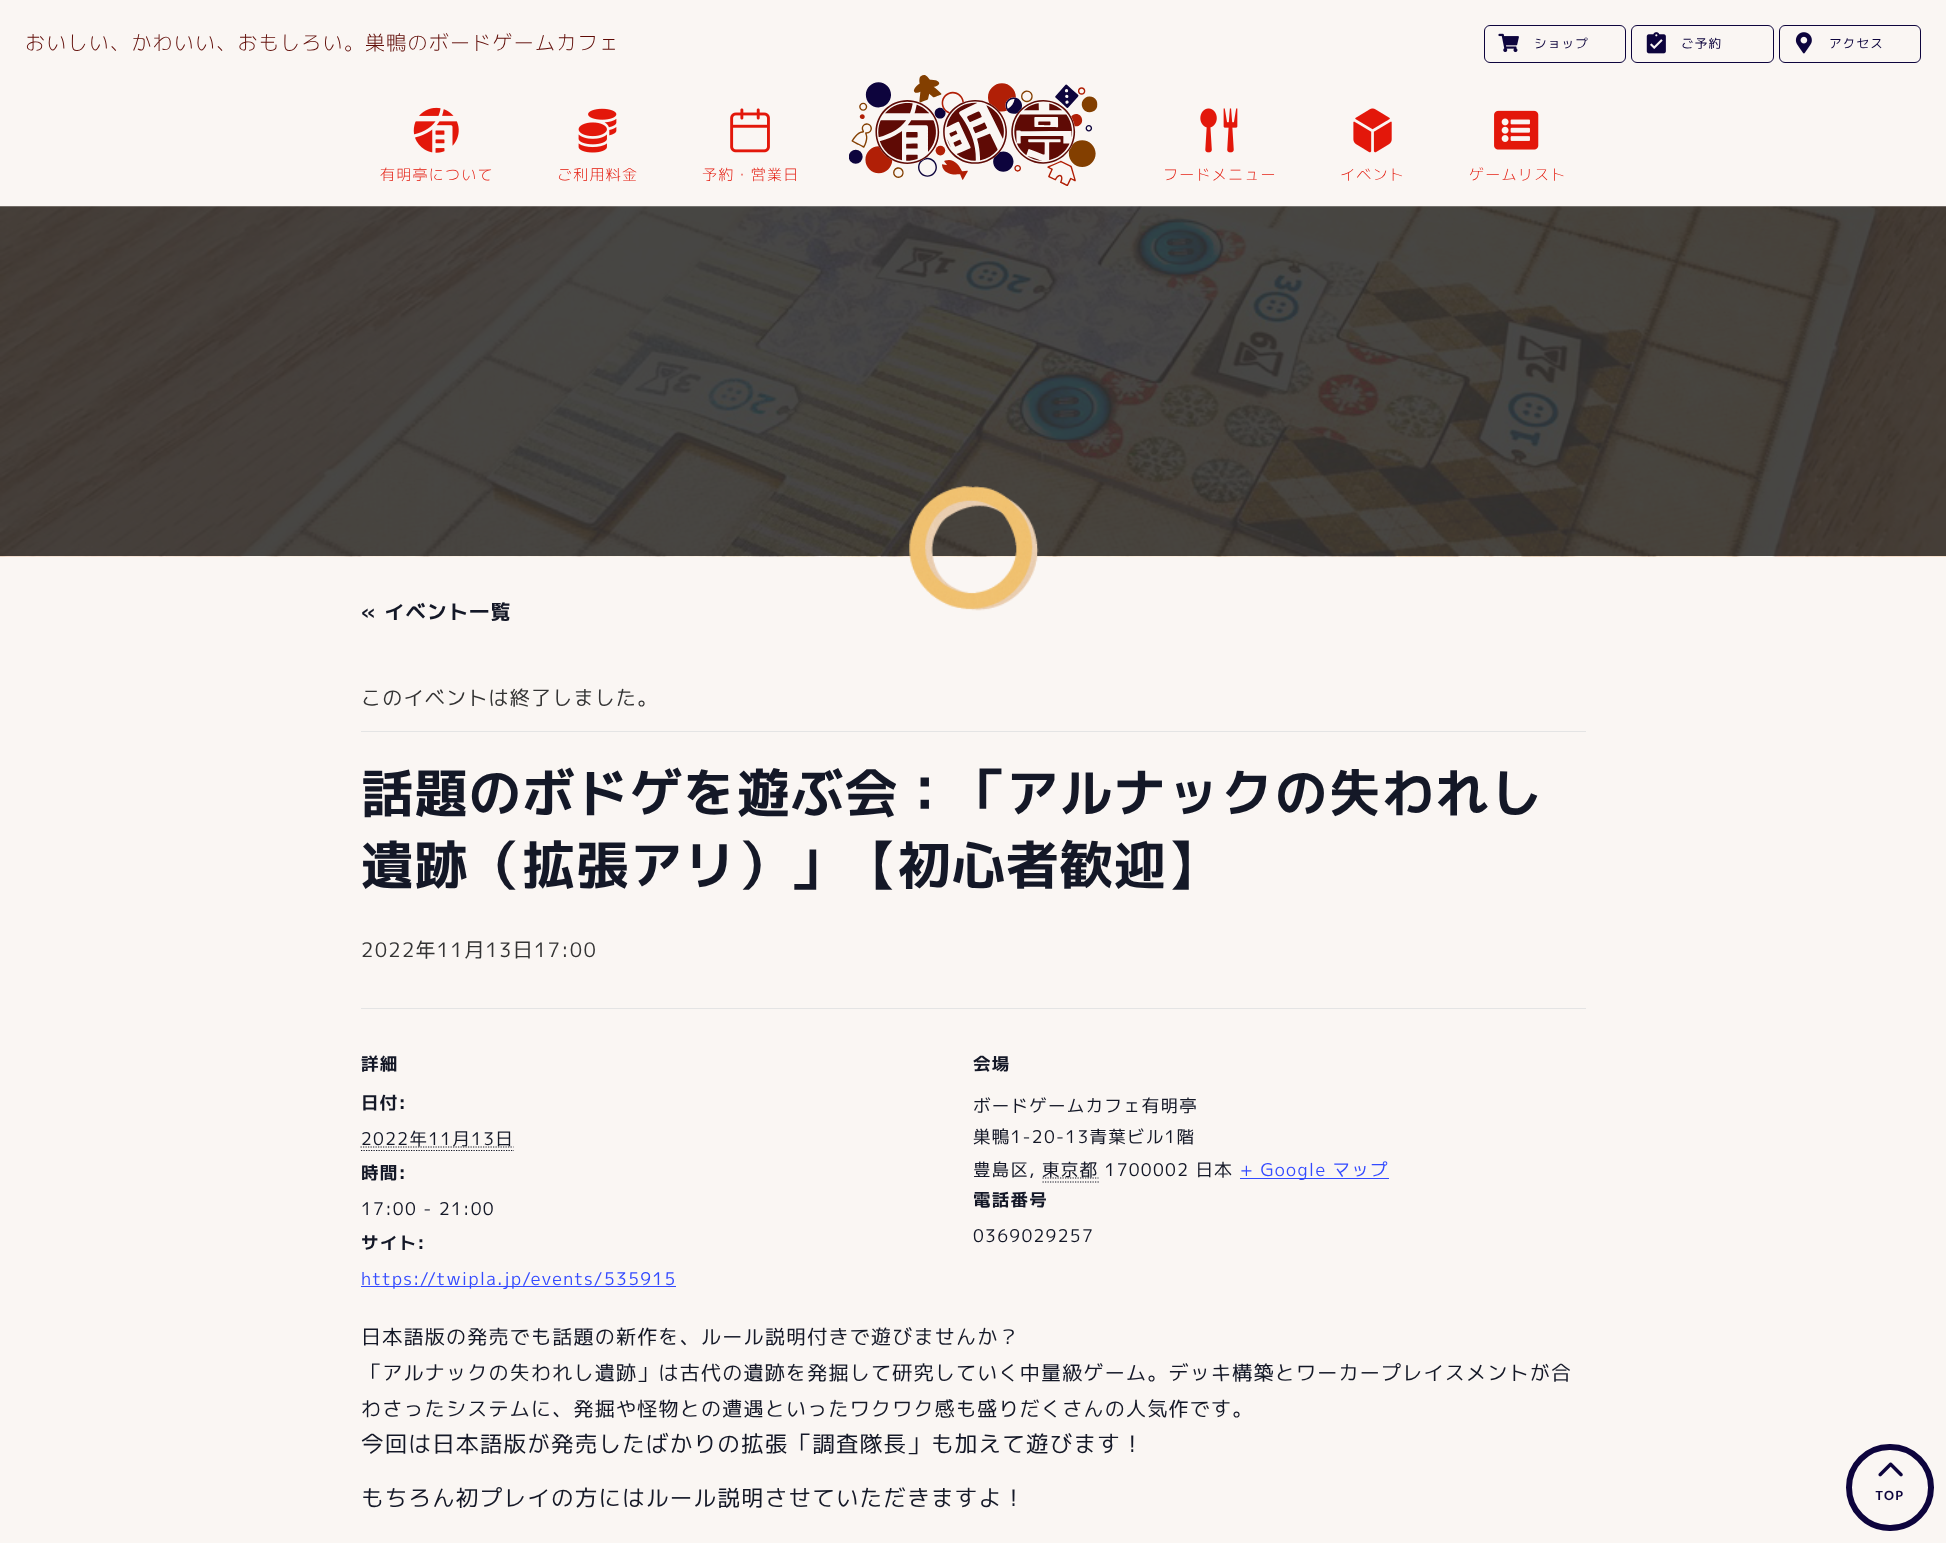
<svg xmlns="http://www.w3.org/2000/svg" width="1946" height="1543">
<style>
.a{font:300 20px 'M PLUS 1p';letter-spacing:1.25px;fill:#5f0a05}
.b{font:12.5px 'M PLUS 1p';letter-spacing:1.25px;fill:#0d043d}
.c{font:300 15px 'M PLUS 1p';letter-spacing:1.25px;fill:#e3170a}
.d{font:bold 20px 'M PLUS 1p';letter-spacing:1.25px;fill:#141827}
.e{font:20px 'M PLUS 1p';letter-spacing:1.25px;fill:#333}
.f{font:bold 52.5px 'M PLUS 1p';letter-spacing:1.25px;fill:#141827}
.g{font:bold 17.5px 'M PLUS 1p';letter-spacing:1.25px;fill:#141827}
.h{font:17.5px 'M PLUS 1p';letter-spacing:1.25px;fill:#141827}
.i{font:17.5px 'M PLUS 1p';letter-spacing:1.25px;fill:#334aff}
.j{font:20px 'M PLUS 1p';letter-spacing:1.25px;fill:#141827}
.k{font:22.5px 'M PLUS 1p';letter-spacing:1.25px;fill:#141827}
.l{font:bold 12.5px 'M PLUS 1p';letter-spacing:1.25px;fill:#0d043d}
</style>
<rect width="100%" height="100%" fill="#faf6f3"/>
<image href="1.png" x="849" y="75" width="249" height="111"/>
<rect fill="none" stroke="#0d043d" x="1484.5" y="25.5" width="141" height="37" rx="5.5"/>
<image href="2.png" x="1498" y="33" width="21" height="20"/>
<rect fill="none" stroke="#0d043d" x="1631.5" y="25.5" width="142" height="37" rx="5.5"/>
<image href="3.png" x="1646" y="32" width="20" height="22"/>
<rect fill="none" stroke="#0d043d" x="1779.5" y="25.5" width="141" height="37" rx="5.5"/>
<image href="4.png" x="1795" y="32" width="17" height="22"/>
<image href="5.png" x="413" y="107" width="46" height="46"/>
<image href="6.png" x="578" y="108" width="39" height="45"/>
<image href="7.png" x="730" y="108" width="40" height="45"/>
<image href="8.png" x="1200" y="108" width="38" height="45"/>
<image href="9.png" x="1353" y="108" width="39" height="45"/>
<image href="10.png" x="1494" y="110" width="45" height="40"/>
<image href="11.png" x="0" y="206" width="1946" height="351"/>
<image href="12.png" x="909" y="485" width="130" height="126"/>
<path fill="#e4e4e4" d="M361 731h1225v1H361z"/>
<path fill="#e4e4e4" d="M361 1008h1225v1H361z"/>
<path fill="none" stroke="#141827" stroke-width="1.2" stroke-dasharray="1.25 1.25" d="M361 1150.5h153"/>
<path fill="none" stroke="#141827" stroke-width="1.2" stroke-dasharray="1.25 1.25" d="M360.5 1147h153"/>
<path fill="#334aff" d="M361 1286h315v1H361z"/>
<path fill="none" stroke="#141827" stroke-width="1.2" stroke-dasharray="1.25 1.25" d="M1042.5 1182h56.5m-56.5-4h56"/>
<path fill="#334aff" d="M1240 1178h149v1H1240z"/>
<rect fill="none" stroke="#0d043d" stroke-width="6" x="1849" y="1447" width="82" height="81" rx="40.5"/>
<image href="13.png" x="1878" y="1462" width="25" height="15"/>
<text class="a" x="25" y="50">おいしい、かわいい、おもしろい。巣鴨のボードゲームカフェ</text>
<text class="b" x="1534" y="48">ショップ</text>
<text class="b" x="1681" y="48">ご予約</text>
<text class="b" x="1829" y="48">アクセス</text>
<text class="c" x="380" y="180">有明亭について</text>
<text class="c" x="557" y="180">ご利用料金</text>
<text class="c" x="702" y="180">予約・営業日</text>
<text class="c" x="1163" y="180">フードメニュー</text>
<text class="c" x="1340" y="180">イベント</text>
<text class="c" x="1469" y="180">ゲームリスト</text>
<text class="d" x="361" y="619">« イベント一覧</text>
<text class="e" x="361" y="705">このイベントは終了しました。</text>
<text class="f" x="361" y="812">話題のボドゲを遊ぶ会：「アルナックの失われし</text>
<text class="f" x="361" y="884">遺跡（拡張アリ）」【初心者歓迎】</text>
<text class="e" x="361" y="957">2022年11月13日17:00</text>
<text class="g" x="361" y="1070">詳細</text>
<text class="g" x="361" y="1109">日付:</text>
<text class="h" x="361" y="1145">2022年11月13日</text>
<text class="g" x="361" y="1179">時間:</text>
<text class="h" x="361" y="1215">17:00 - 21:00</text>
<text class="g" x="361" y="1249">サイト:</text>
<text class="i" x="361" y="1285">https://twipla.jp/events/535915</text>
<text class="g" x="973" y="1070">会場</text>
<text class="h" x="973" y="1112">ボードゲームカフェ有明亭</text>
<text class="h" x="973" y="1143">巣鴨1-20-13青葉ビル1階</text>
<text class="h" x="973" y="1176">豊島区,</text>
<text class="h" x="1042" y="1176">東京都 1700002 日本</text>
<text class="i" x="1240" y="1176">+ Google マップ</text>
<text class="g" x="973" y="1206">電話番号</text>
<text class="h" x="973" y="1242">0369029257</text>
<text class="j" x="361" y="1344">日本語版の発売でも話題の新作を、ルール説明付きで遊びませんか？</text>
<text class="j" x="361" y="1380">「アルナックの失われし遺跡」は古代の遺跡を発掘して研究していく中量級ゲーム。デッキ構築とワーカープレイスメントが合</text>
<text class="j" x="361" y="1416">わさったシステムに、発掘や怪物との遭遇といったワクワク感も盛りだくさんの人気作です。</text>
<text class="k" x="361" y="1452">今回は日本語版が発売したばかりの拡張「調査隊長」も加えて遊びます！</text>
<text class="k" x="361" y="1506">もちろん初プレイの方にはルール説明させていただきますよ！</text>
<text class="l" x="1875" y="1500">TOP</text>
</svg>
